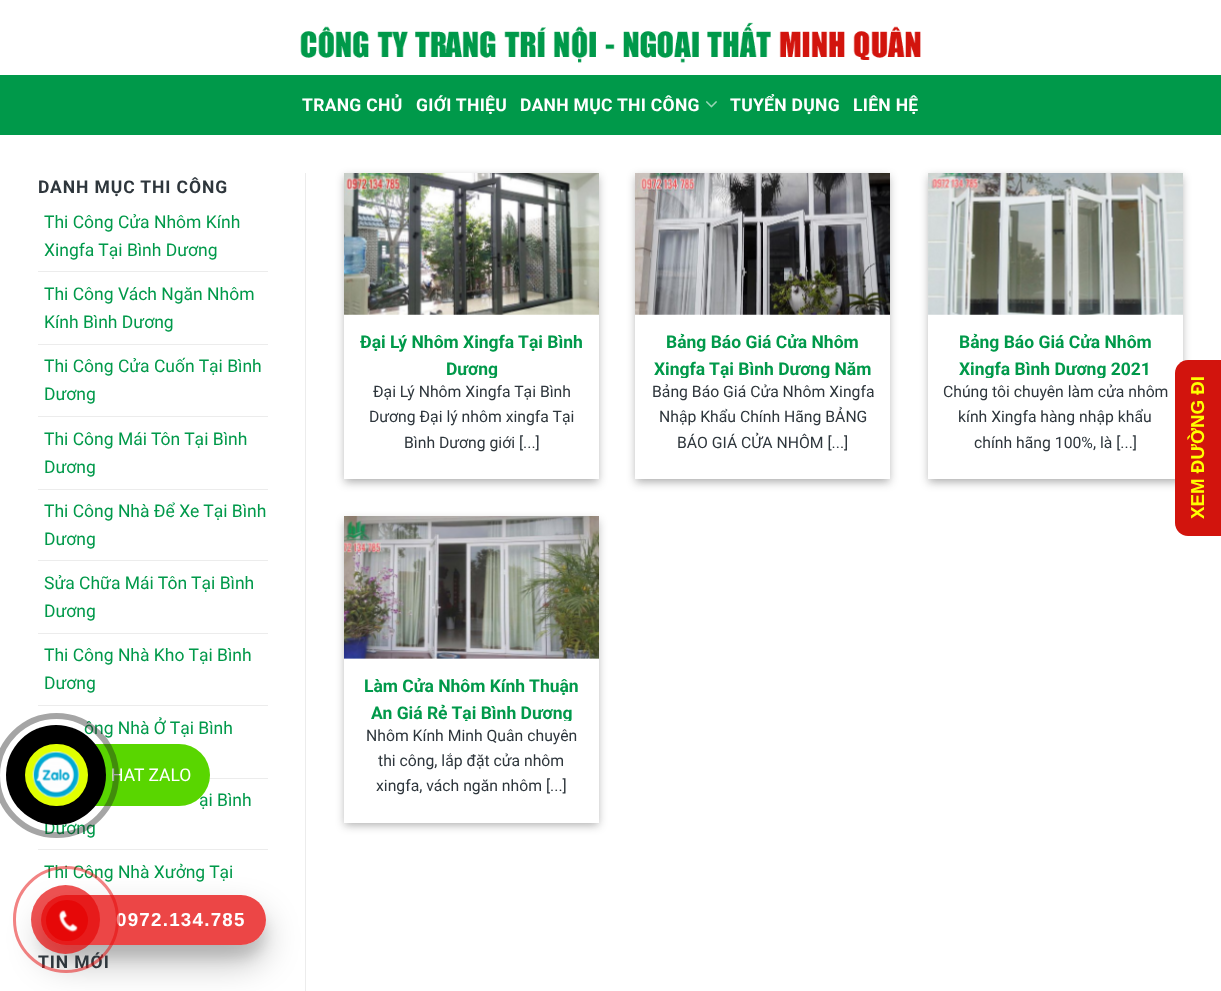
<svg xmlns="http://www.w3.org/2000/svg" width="1221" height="991">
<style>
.a{font:bold 17.5px Roboto;letter-spacing:0.3px;fill:#fff}
.b{font:bold 17.5px Roboto;letter-spacing:0.9px;fill:#2e363c}
.c{font:17.5px Roboto;fill:#00994a}
.d{font:bold 17.5px Roboto;fill:#00994a}
.e{font:15.75px Roboto;fill:#2e363c}
.f{font:bold 18.75px Liberation Sans;fill:#ff0}
.g{font:17.5px Roboto;fill:#fff}
.h{font:bold 18.75px Liberation Sans;letter-spacing:1.25px;fill:#fff}
</style>
<defs>
<clipPath id="clip1"><path d="M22 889h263v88h-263zm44 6h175c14 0 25 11 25 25c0 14-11 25-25 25h-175c-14 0-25-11-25-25c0-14 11-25 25-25z" clip-rule="evenodd"/></clipPath>
<clipPath id="clip2"><path d="M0 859h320v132h-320zm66 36h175c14 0 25 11 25 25c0 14-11 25-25 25h-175c-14 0-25-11-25-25c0-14 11-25 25-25z" clip-rule="evenodd"/></clipPath>
<clipPath id="clip3"><path d="M356 328h230v50H356z"/></clipPath>
<clipPath id="clip4"><path d="M648 328h230v50H648z"/></clipPath>
<clipPath id="clip5"><path d="M940 328h230v50H940z"/></clipPath>
<clipPath id="clip6"><path d="M356 671h230v50H356z"/></clipPath>
</defs>
<rect width="100%" height="100%" fill="#fff"/>
<image href="1.png" x="300" y="22" width="621" height="41"/>
<path fill="#00994a" d="M0 75h1221v60H0z"/>
<image href="2.png" x="706" y="101" width="11" height="7"/>
<path fill="#ececec" d="M38 271h230v1H38z"/>
<path fill="#ececec" d="M38 344h230v1H38z"/>
<path fill="#ececec" d="M38 416h230v1H38z"/>
<path fill="#ececec" d="M38 489h230v1H38z"/>
<path fill="#ececec" d="M38 560h230v1H38z"/>
<path fill="#ececec" d="M38 633h230v1H38z"/>
<path fill="#ececec" d="M38 705h230v1H38z"/>
<path fill="#ececec" d="M209 778h59v1H209z"/>
<path fill="#ececec" d="M38 849h230v1H38z"/>
<path fill="#ececec" d="M305 173h1v818H305z"/>
<path fill="#0000003b" filter="blur(4px)" d="M344 176h255v307H344z"/>
<path fill="#00000029" filter="blur(4px)" d="M349 181h245v297H349z"/>
<path fill="#fff" d="M344 314h255v165H344z"/>
<image href="3.png" x="344" y="173" width="255" height="142"/>
<path fill="#0000003b" filter="blur(4px)" d="M635 176h255v307H635z"/>
<path fill="#00000029" filter="blur(4px)" d="M640 181h245v297H640z"/>
<path fill="#fff" d="M635 314h255v165H635z"/>
<image href="4.png" x="635" y="173" width="255" height="142"/>
<path fill="#0000003b" filter="blur(4px)" d="M928 176h255v307H928z"/>
<path fill="#00000029" filter="blur(4px)" d="M933 181h245v297H933z"/>
<path fill="#fff" d="M928 314h255v165H928z"/>
<image href="5.png" x="928" y="173" width="255" height="142"/>
<path fill="#0000003b" filter="blur(4px)" d="M344 520h255v306H344z"/>
<path fill="#00000029" filter="blur(4px)" d="M349 525h245v296H349z"/>
<path fill="#fff" d="M344 658h255v165H344z"/>
<image href="6.png" x="344" y="516" width="255" height="143"/>
<path fill="#d2140d" d="M1175 523v-150c0-7 6-13 13-13h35v176h-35c-7 0-13-6-13-13z"/>
<g clip-path="url(#clip1)">
<rect fill="#0000001a" filter="blur(6px)" x="41" y="908" width="225" height="50" rx="25"/>
</g>
<g clip-path="url(#clip2)">
<rect fill="#00000040" filter="blur(17.5px)" x="41" y="913" width="225" height="50" rx="25"/>
</g>
<rect fill="#e60808bf" x="41" y="895" width="225" height="50" rx="25"/>
<text class="a" x="302" y="111">TRANG CHỦ</text>
<text class="a" x="416" y="111">GIỚI THIỆU</text>
<text class="a" x="520" y="111">DANH MỤC THI CÔNG</text>
<text class="a" x="730" y="111">TUYỂN DỤNG</text>
<text class="a" x="853" y="111">LIÊN HỆ</text>
<text class="b" x="38" y="193">DANH MỤC THI CÔNG</text>
<text class="c" x="44" y="228">Thi Công Cửa Nhôm Kính</text>
<text class="c" x="44" y="256">Xingfa Tại Bình Dương</text>
<text class="c" x="44" y="300">Thi Công Vách Ngăn Nhôm</text>
<text class="c" x="44" y="328">Kính Bình Dương</text>
<text class="c" x="44" y="372">Thi Công Cửa Cuốn Tại Bình</text>
<text class="c" x="44" y="400">Dương</text>
<text class="c" x="44" y="445">Thi Công Mái Tôn Tại Bình</text>
<text class="c" x="44" y="473">Dương</text>
<text class="c" x="44" y="517">Thi Công Nhà Để Xe Tại Bình</text>
<text class="c" x="44" y="545">Dương</text>
<text class="c" x="44" y="589">Sửa Chữa Mái Tôn Tại Bình</text>
<text class="c" x="44" y="617">Dương</text>
<text class="c" x="44" y="661">Thi Công Nhà Kho Tại Bình</text>
<text class="c" x="44" y="689">Dương</text>
<text class="c" x="84" y="734">ông Nhà Ở Tại Bình</text>
<text class="c" x="199" y="806">ại Bình</text>
<text class="c" x="44" y="834">Dương</text>
<text class="c" x="44" y="878">Thi Công Nhà Xưởng Tại</text>
<text class="b" x="38" y="968">TIN MỚI</text>
<text class="d" x="360" y="348">Đại Lý Nhôm Xingfa Tại Bình</text>
<g clip-path="url(#clip3)">
<text class="d" x="446" y="375">Dương</text>
</g>
<text class="e" x="373" y="397">Đại Lý Nhôm Xingfa Tại Bình</text>
<text class="e" x="369" y="422">Dương Đại lý nhôm xingfa Tại</text>
<text class="e" x="404" y="448">Bình Dương giới [...]</text>
<text class="d" x="666" y="348">Bảng Báo Giá Cửa Nhôm</text>
<g clip-path="url(#clip4)">
<text class="d" x="654" y="375">Xingfa Tại Bình Dương Năm</text>
</g>
<text class="e" x="652" y="397">Bảng Báo Giá Cửa Nhôm Xingfa</text>
<text class="e" x="659" y="422">Nhập Khẩu Chính Hãng BẢNG</text>
<text class="e" x="677" y="448">BÁO GIÁ CỬA NHÔM [...]</text>
<text class="d" x="959" y="348">Bảng Báo Giá Cửa Nhôm</text>
<g clip-path="url(#clip5)">
<text class="d" x="959" y="375">Xingfa Bình Dương 2021</text>
</g>
<text class="e" x="943" y="397">Chúng tôi chuyên làm cửa nhôm</text>
<text class="e" x="958" y="422">kính Xingfa hàng nhập khẩu</text>
<text class="e" x="974" y="448">chính hãng 100%, là [...]</text>
<text class="d" x="364" y="692">Làm Cửa Nhôm Kính Thuận</text>
<g clip-path="url(#clip6)">
<text class="d" x="371" y="719">An Giá Rẻ Tại Bình Dương</text>
</g>
<text class="e" x="366" y="741">Nhôm Kính Minh Quân chuyên</text>
<text class="e" x="378" y="766">thi công, lắp đặt cửa nhôm</text>
<text class="e" x="376" y="791">xingfa, vách ngăn nhôm [...]</text>
<text class="f" x="1204" y="519" transform="rotate(-90 1204 519)">XEM ĐƯỜNG ĐI</text>
<rect fill="#59d600" x="25" y="744" width="185" height="62" rx="31"/>
<text class="g" x="111" y="781">HAT ZALO</text>
<circle fill="none" stroke="#1e1e1e66" stroke-width="6" cx="56.5" cy="775.5" r="59.5"/>
<circle fill="#000" cx="56" cy="775" r="50"/>
<rect fill="#e1ff00" x="25" y="744" width="63" height="62" rx="31"/>
<image href="7.png" x="32" y="751" width="48" height="48"/>
<text class="h" x="116" y="926">0972.134.785</text>
<rect fill="none" stroke="#e6080880" stroke-width="3" x="14.5" y="867.5" width="103" height="104" rx="51.5"/>
<circle fill="#e60808b3" cx="65.5" cy="919.5" r="34.5"/>
<rect fill="#e60808" x="46" y="900" width="42" height="41" rx="20.5"/>
<image href="8.png" x="58" y="910" width="20" height="23"/>
</svg>
